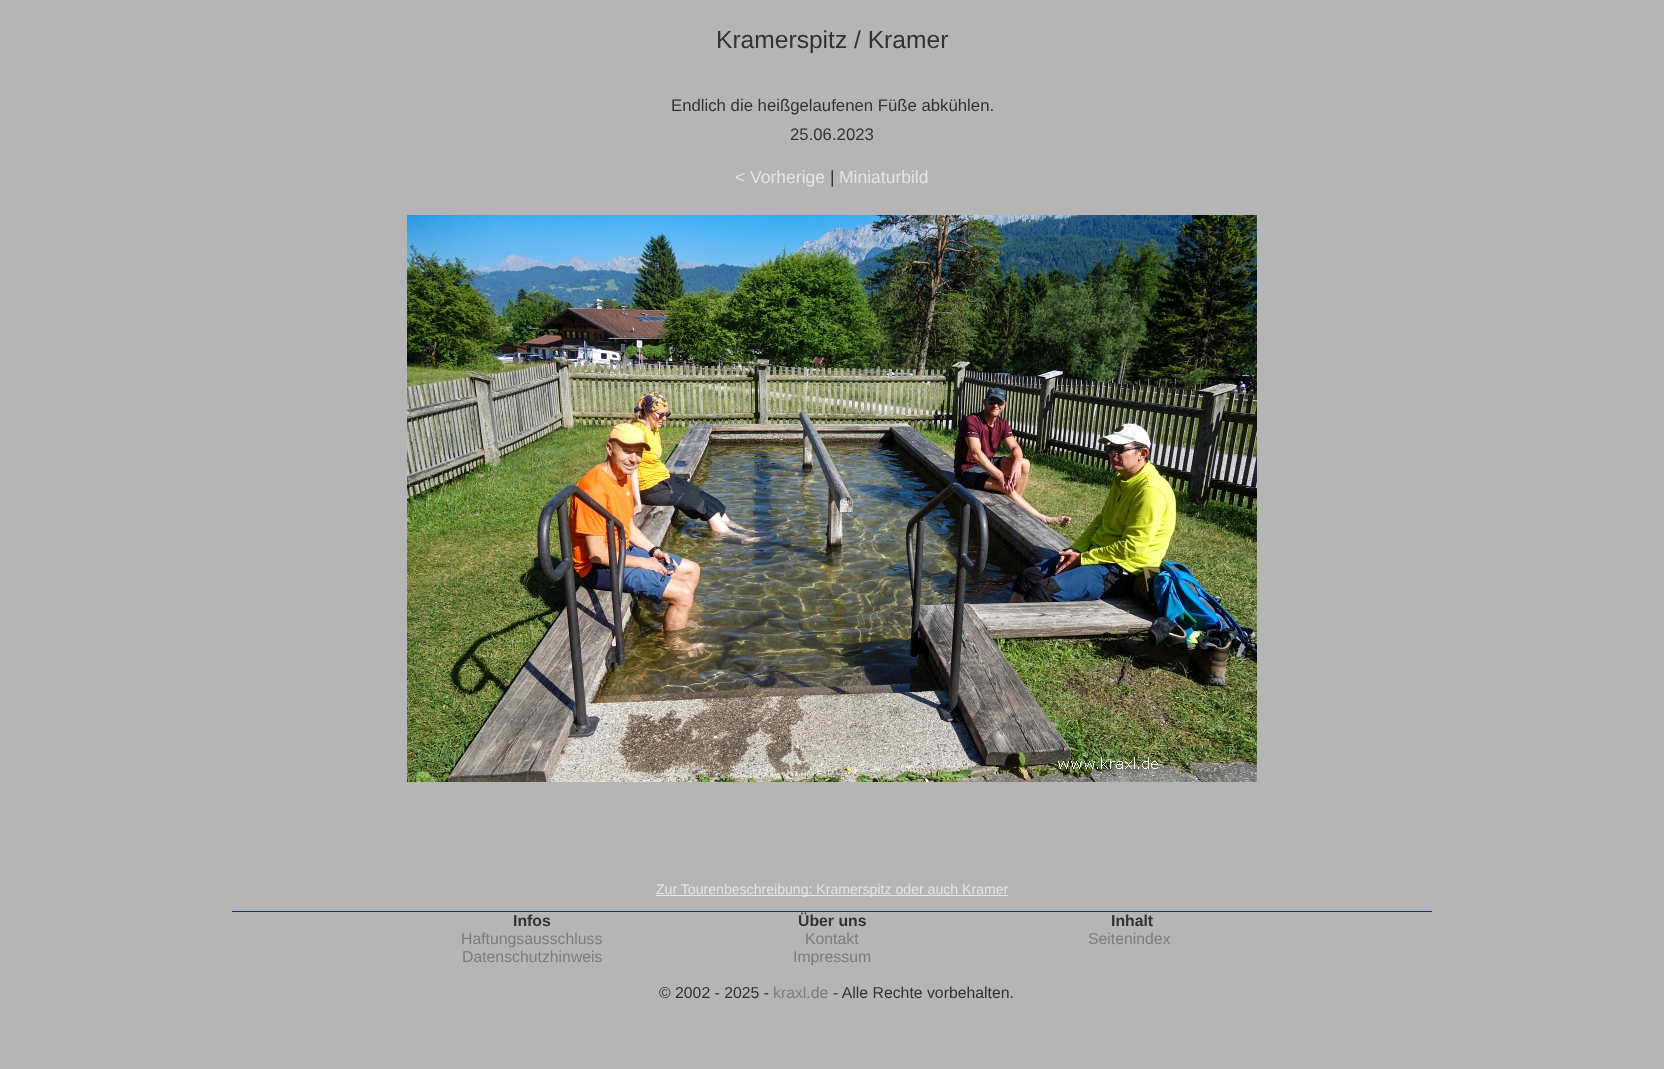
<svg xmlns="http://www.w3.org/2000/svg" width="1664" height="1069">
<style>
.a{font:24.6px Liberation Sans;fill:#333}
.b{font:16.75px Liberation Sans;fill:#333}
.c{font:17.5px Liberation Sans;fill:#e4e4e4}
.d{font:17.5px Liberation Sans;fill:#333}
.e{font:14.1px Liberation Sans;fill:#e4e4e4}
.f{font:bold 15.8px Liberation Sans;fill:#333}
.g{font:15.8px Liberation Sans;fill:#7d7d7d}
.h{font:15.8px Liberation Sans;fill:#333}
</style>
<rect width="100%" height="100%" fill="#b5b5b5"/>
<image href="1.png" x="407" y="215" width="850" height="567"/>
<path fill="#e4e4e4" d="M656 895h352v1H656z"/>
<path fill="#039" d="M232 911h1200v1H232z"/>
<text class="a" x="716" y="48">Kramerspitz / Kramer</text>
<text class="b" x="671" y="111">Endlich die heißgelaufenen Füße abkühlen.</text>
<text class="b" x="790" y="140">25.06.2023</text>
<text class="c" x="735" y="183">&lt; Vorherige</text>
<text class="d" x="830" y="183">|</text>
<text class="c" x="839" y="183">Miniaturbild</text>
<text class="e" x="656" y="894">Zur Tourenbeschreibung: Kramerspitz oder auch Kramer</text>
<text class="f" x="513" y="926">Infos</text>
<text class="g" x="461" y="944">Haftungsausschluss</text>
<text class="g" x="462" y="962">Datenschutzhinweis</text>
<text class="f" x="798" y="926">Über uns</text>
<text class="g" x="805" y="944">Kontakt</text>
<text class="g" x="793" y="962">Impressum</text>
<text class="f" x="1111" y="926">Inhalt</text>
<text class="g" x="1088" y="944">Seitenindex</text>
<text class="h" x="659" y="998">© 2002 - 2025 -</text>
<text class="g" x="773" y="998">kraxl.de</text>
<text class="h" x="833" y="998">- Alle Rechte vorbehalten.</text>
</svg>
